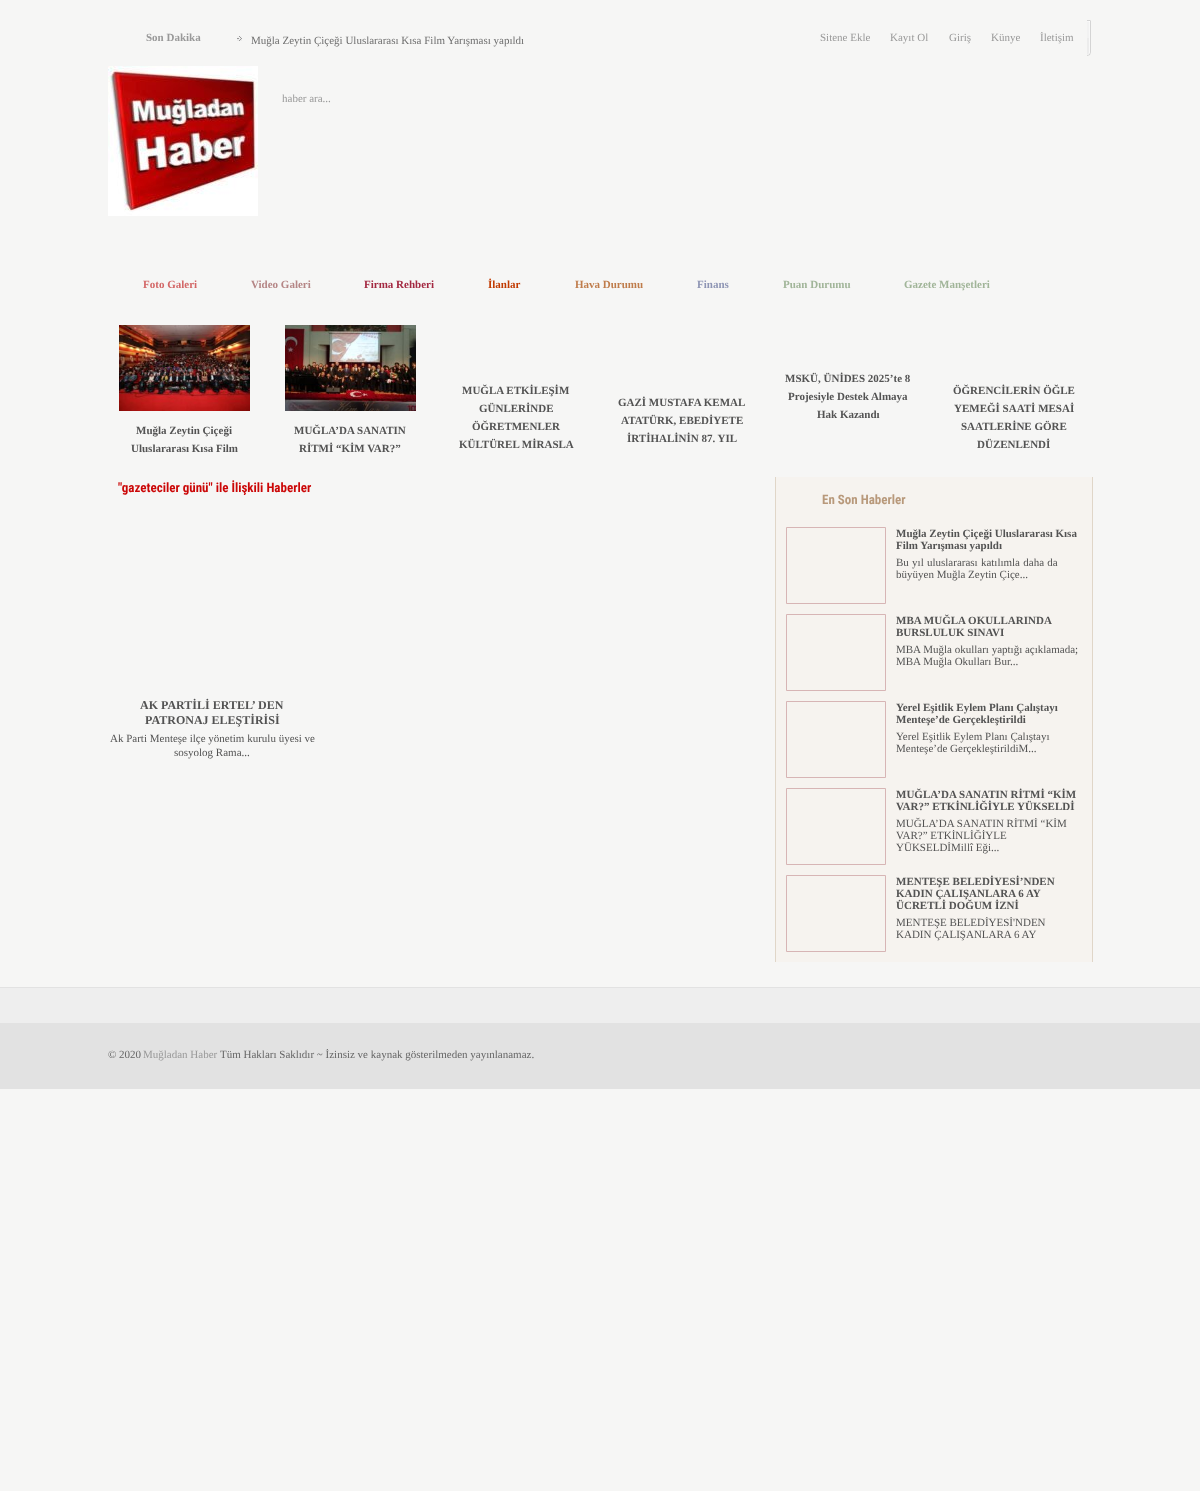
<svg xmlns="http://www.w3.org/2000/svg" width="1200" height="1491">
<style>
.a{font:bold 11px Liberation Serif;fill:#999}
.b{font:11px Liberation Serif;fill:#6e6e6e}
.c{font:11px Liberation Serif;fill:#999}
.d{font:bold 11px Liberation Serif;fill:#d36767}
.e{font:bold 11px Liberation Serif;fill:#b58686}
.f{font:bold 11px Liberation Serif;fill:#a32841}
.g{font:bold 11px Liberation Serif;fill:#c13a00}
.h{font:bold 11px Liberation Serif;fill:#bf7c4b}
.i{font:bold 11px Liberation Serif;fill:#8e95b4}
.j{font:bold 11px Liberation Serif;fill:#a1b599}
.k{font:bold 11px Liberation Serif;fill:#535353}
.l{font:bold 13px Roboto Condensed;fill:#cb0707}
.m{font:bold 12px Liberation Serif;fill:#535353}
.n{font:11px Liberation Serif;fill:#535353}
.o{font:bold 13px Roboto Condensed;fill:#b8997b}
.p{font:11px Liberation Serif;fill:#666}
</style>
<defs>
<clipPath id="clip1"><path d="M896 527h183v72H896z"/></clipPath>
<clipPath id="clip2"><path d="M896 614h183v72H896z"/></clipPath>
<clipPath id="clip3"><path d="M896 701h183v72H896z"/></clipPath>
<clipPath id="clip4"><path d="M896 788h183v72H896z"/></clipPath>
<clipPath id="clip5"><path d="M896 875h183v72H896z"/></clipPath>
</defs>
<rect width="100%" height="100%" fill="#f6f6f5"/>
<image href="1.png" x="237" y="36" width="5" height="5"/>
<image href="2.png" x="1087" y="20" width="4" height="36"/>
<image href="3.png" x="108" y="66" width="150" height="150"/>
<image href="4.png" x="119" y="325" width="131" height="86"/>
<image href="5.png" x="285" y="325" width="131" height="86"/>
<path fill="#f6f3ef" d="M776 477h316v485H776z"/>
<path fill="#e0d6c8" d="M1092 477h1v485H1092z"/>
<path fill="#e0d6c8" d="M775 477h1v485H775z"/>
<path fill="none" stroke="#d7b5b5" d="M786.5 527.5h99v76H786.5z"/>
<path fill="none" stroke="#d7b5b5" d="M786.5 614.5h99v76H786.5z"/>
<path fill="none" stroke="#d7b5b5" d="M786.5 701.5h99v76H786.5z"/>
<path fill="none" stroke="#d7b5b5" d="M786.5 788.5h99v76H786.5z"/>
<path fill="none" stroke="#d7b5b5" d="M786.5 875.5h99v76H786.5z"/>
<path fill="#eee" d="M0 988h1200v35H0z"/>
<path fill="#e2e2e2" d="M0 987h1200v1H0z"/>
<path fill="#e2e2e2" d="M0 1023h1200v66H0z"/>
<text class="a" x="146" y="41">Son Dakika</text>
<text class="b" x="251" y="44">Muğla Zeytin Çiçeği Uluslararası Kısa Film Yarışması yapıldı</text>
<text class="c" x="820" y="41">Sitene Ekle</text>
<text class="c" x="890" y="41">Kayıt Ol</text>
<text class="c" x="949" y="41">Giriş</text>
<text class="c" x="991" y="41">Künye</text>
<text class="c" x="1040" y="41">İletişim</text>
<text class="c" x="282" y="102">haber ara...</text>
<text class="d" x="143" y="288">Foto Galeri</text>
<text class="e" x="251" y="288">Video Galeri</text>
<text class="f" x="364" y="288">Firma Rehberi</text>
<text class="g" x="488" y="288">İlanlar</text>
<text class="h" x="575" y="288">Hava Durumu</text>
<text class="i" x="697" y="288">Finans</text>
<text class="j" x="783" y="288">Puan Durumu</text>
<text class="j" x="904" y="288">Gazete Manşetleri</text>
<text class="k" x="136" y="434">Muğla Zeytin Çiçeği</text>
<text class="k" x="131" y="452">Uluslararası Kısa Film</text>
<text class="k" x="294" y="434">MUĞLA’DA SANATIN</text>
<text class="k" x="299" y="452">RİTMİ “KİM VAR?”</text>
<text class="k" x="462" y="394">MUĞLA ETKİLEŞİM</text>
<text class="k" x="479" y="412">GÜNLERİNDE</text>
<text class="k" x="472" y="430">ÖĞRETMENLER</text>
<text class="k" x="459" y="448">KÜLTÜREL MİRASLA</text>
<text class="k" x="618" y="406">GAZİ MUSTAFA KEMAL</text>
<text class="k" x="621" y="424">ATATÜRK, EBEDİYETE</text>
<text class="k" x="627" y="442">İRTİHALİNİN 87. YIL</text>
<text class="k" x="785" y="382">MSKÜ, ÜNİDES 2025’te 8</text>
<text class="k" x="788" y="400">Projesiyle Destek Almaya</text>
<text class="k" x="817" y="418">Hak Kazandı</text>
<text class="k" x="953" y="394">ÖĞRENCİLERİN ÖĞLE</text>
<text class="k" x="954" y="412">YEMEĞİ SAATİ MESAİ</text>
<text class="k" x="961" y="430">SAATLERİNE GÖRE</text>
<text class="k" x="977" y="448">DÜZENLENDİ</text>
<text class="l" x="118" y="492">"gazeteciler günü" ile İlişkili Haberler</text>
<text class="m" x="140" y="709">AK PARTİLİ ERTEL’ DEN</text>
<text class="m" x="145" y="724">PATRONAJ ELEŞTİRİSİ</text>
<text class="n" x="110" y="742">Ak Parti Menteşe ilçe yönetim kurulu üyesi ve</text>
<text class="n" x="174" y="756">sosyolog Rama...</text>
<text class="o" x="822" y="504">En Son Haberler</text>
<g clip-path="url(#clip1)">
<text class="k" x="896" y="537">Muğla Zeytin Çiçeği Uluslararası Kısa</text>
<text class="k" x="896" y="549">Film Yarışması yapıldı</text>
</g>
<text class="n" x="896" y="566" word-spacing="0.5">Bu yıl uluslararası katılımla daha da</text>
<text class="n" x="896" y="578">büyüyen Muğla Zeytin Çiçe...</text>
<g clip-path="url(#clip2)">
<text class="k" x="896" y="624">MBA MUĞLA OKULLARINDA</text>
<text class="k" x="896" y="636">BURSLULUK SINAVI</text>
</g>
<text class="n" x="896" y="653">MBA Muğla okulları yaptığı açıklamada;</text>
<text class="n" x="896" y="665">MBA Muğla Okulları Bur...</text>
<text class="k" x="896" y="711">Yerel Eşitlik Eylem Planı Çalıştayı</text>
<g clip-path="url(#clip3)">
<text class="k" x="896" y="723">Menteşe’de Gerçekleştirildi</text>
</g>
<text class="n" x="896" y="740">Yerel Eşitlik Eylem Planı Çalıştayı</text>
<text class="n" x="896" y="752">Menteşe’de GerçekleştirildiM...</text>
<g clip-path="url(#clip4)">
<text class="k" x="896" y="798">MUĞLA’DA SANATIN RİTMİ “KİM</text>
</g>
<text class="k" x="896" y="810">VAR?” ETKİNLİĞİYLE YÜKSELDİ</text>
<text class="n" x="896" y="827">MUĞLA’DA SANATIN RİTMİ “KİM</text>
<text class="n" x="896" y="839">VAR?” ETKİNLİĞİYLE</text>
<text class="n" x="896" y="851">YÜKSELDİMillî Eği...</text>
<g clip-path="url(#clip5)">
<text class="k" x="896" y="885">MENTEŞE BELEDİYESİ’NDEN</text>
<text class="k" x="896" y="897">KADIN ÇALIŞANLARA 6 AY</text>
</g>
<text class="k" x="896" y="909">ÜCRETLİ DOĞUM İZNİ</text>
<text class="n" x="896" y="926">MENTEŞE BELEDİYESİ'NDEN</text>
<text class="n" x="896" y="938">KADIN ÇALIŞANLARA 6 AY</text>
<text class="p" x="108" y="1058">© 2020</text>
<text class="c" x="143" y="1058">Muğladan Haber</text>
<text class="p" x="220" y="1058">Tüm Hakları Saklıdır ~ İzinsiz ve kaynak gösterilmeden yayınlanamaz.</text>
</svg>
